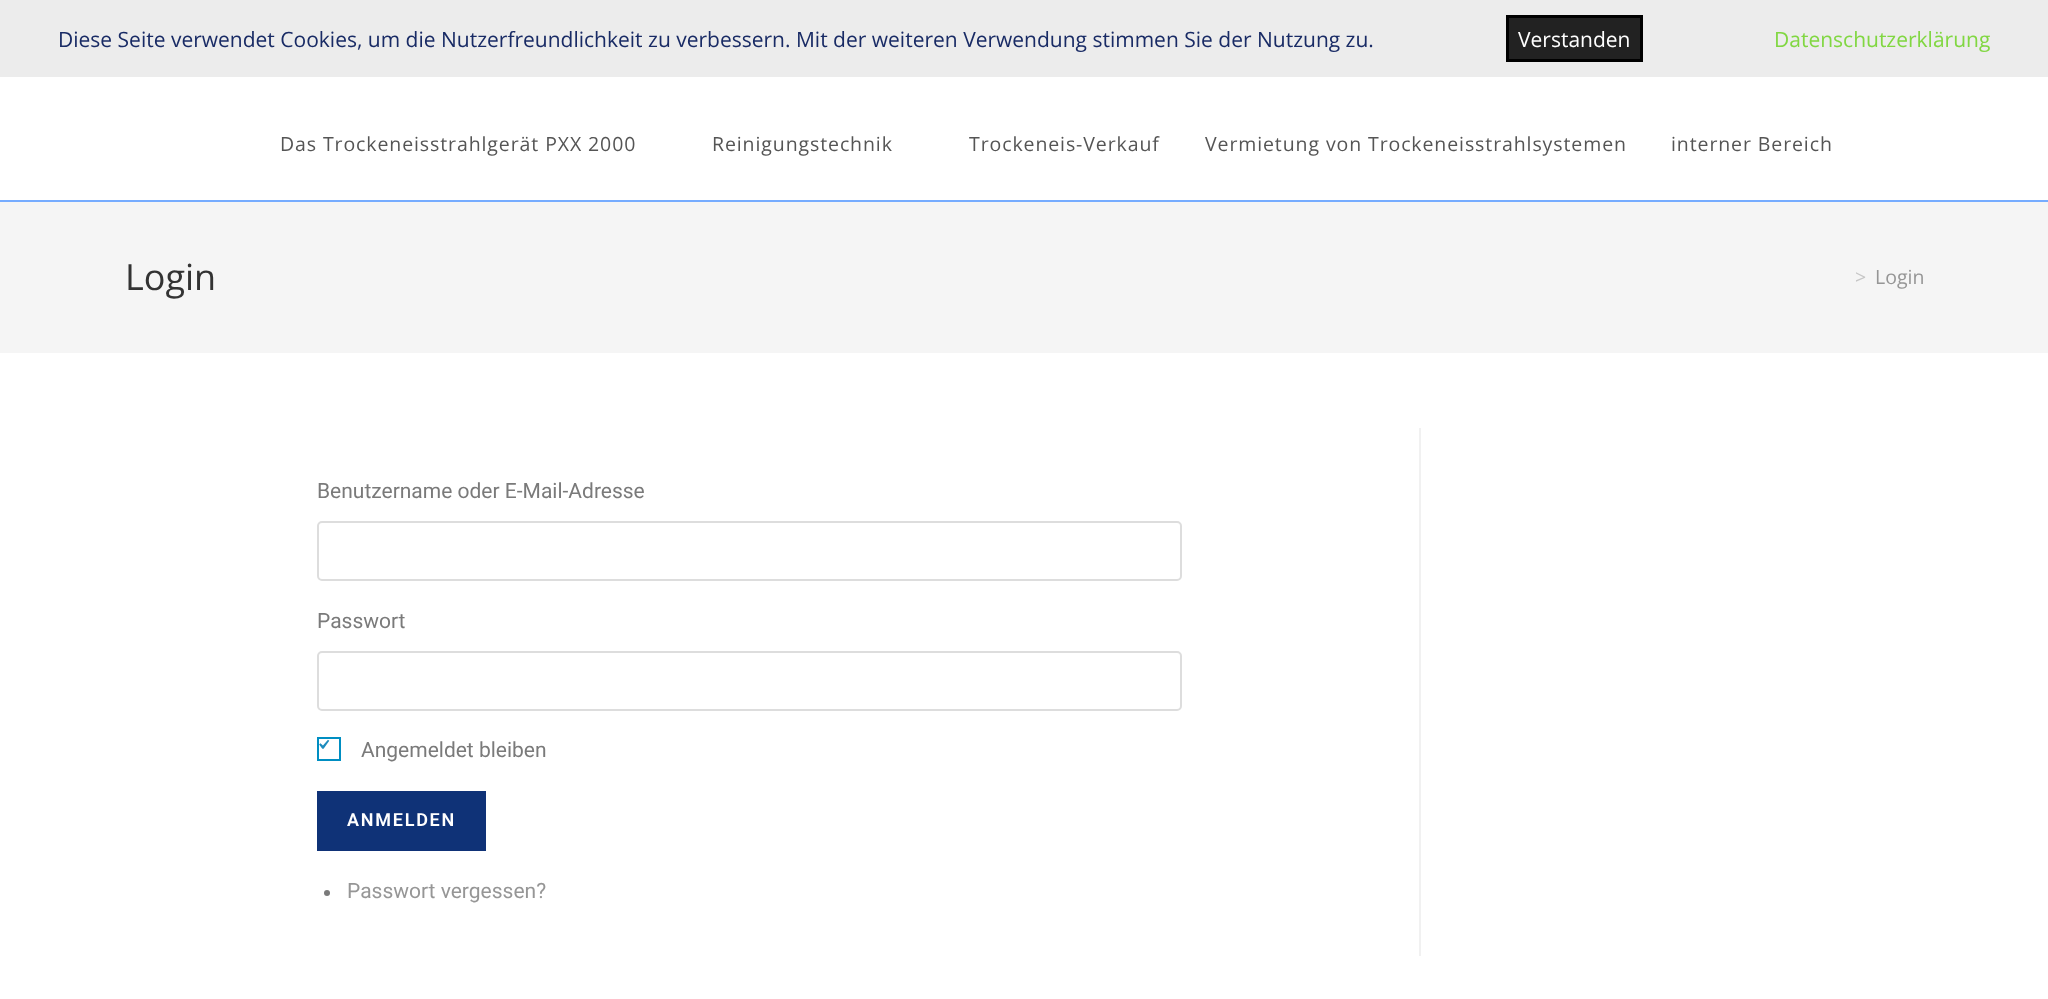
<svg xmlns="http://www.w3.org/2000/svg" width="2048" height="999">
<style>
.a{font:21px Open Sans;fill:#192b65}
.b{font:21px Open Sans;fill:#fff}
.c{font:21px Open Sans;fill:#81d742}
.d{font:19.5px Open Sans;letter-spacing:0.9px;fill:#555}
.e{font:36px Open Sans;fill:#333}
.f{font:19.5px Open Sans;fill:#c6c6c6}
.g{font:19.5px Open Sans;fill:#969696}
.h{font:21px Roboto;fill:#7a7a7a}
.i{font:600 18px Roboto;letter-spacing:1.75px;fill:#fff}
.j{font:21px Roboto;fill:#969696}
</style>
<rect width="100%" height="100%" fill="#fff"/>
<path fill="#ececec" d="M0 0h2048v77H0z"/>
<path fill="#222" stroke="#000" stroke-width="3" d="M1507.5 16.5h134v44H1507.5z"/>
<path fill="#76acff" d="M0 200h2048v2H0z"/>
<path fill="#f5f5f5" d="M0 202h2048v151H0z"/>
<path fill="#f1f1f1" d="M1419 428h2v528H1419z"/>
<rect fill="none" stroke="#ddd" stroke-width="2" x="318" y="522" width="863" height="58" rx="4"/>
<rect fill="none" stroke="#ddd" stroke-width="2" x="318" y="652" width="863" height="58" rx="4"/>
<path fill="none" stroke="#008ec2" stroke-width="2" d="M318 738h22v22H318z"/>
<image href="1.png" x="319" y="739" width="11" height="10"/>
<path fill="#0f3277" d="M317 791h169v60H317z"/>
<circle fill="#7a7a7a" cx="327" cy="893" r="3"/>
<text class="a" x="58" y="47">Diese Seite verwendet Cookies, um die Nutzerfreundlichkeit zu verbessern. Mit der weiteren Verwendung stimmen Sie der Nutzung zu.</text>
<text class="b" x="1518" y="47">Verstanden</text>
<text class="c" x="1774" y="47">Datenschutzerklärung</text>
<text class="d" x="280" y="151">Das Trockeneisstrahlgerät PXX 2000</text>
<text class="d" x="712" y="151">Reinigungstechnik</text>
<text class="d" x="969" y="151">Trockeneis-Verkauf</text>
<text class="d" x="1205" y="151">Vermietung von Trockeneisstrahlsystemen</text>
<text class="d" x="1671" y="151">interner Bereich</text>
<text class="e" x="125" y="290">Login</text>
<text class="f" x="1855" y="284">&gt;</text>
<text class="g" x="1875" y="284">Login</text>
<text class="h" x="317" y="498">Benutzername oder E-Mail-Adresse</text>
<text class="h" x="317" y="628">Passwort</text>
<text class="h" x="361" y="757">Angemeldet bleiben</text>
<text class="i" x="347" y="826">ANMELDEN</text>
<text class="j" x="347" y="898">Passwort vergessen?</text>
</svg>
